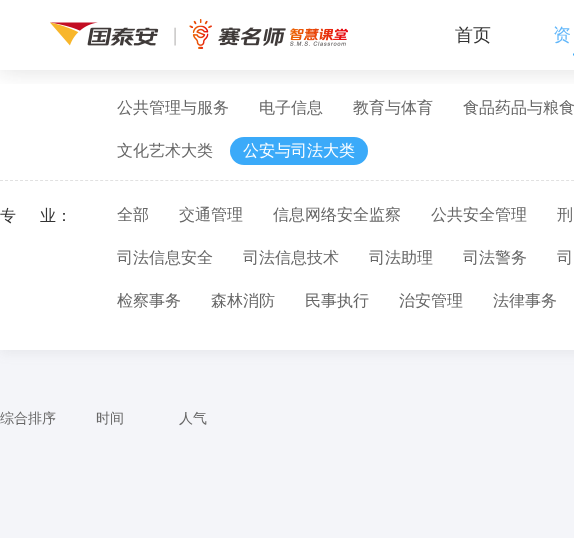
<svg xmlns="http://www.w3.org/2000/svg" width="574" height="538">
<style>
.a{font:500 18px WenQuanYi Zen Hei;fill:#333}
.b{font:500 18px WenQuanYi Zen Hei;fill:#62b7fa}
.c{font:500 16px WenQuanYi Zen Hei;fill:#666}
.d{font:500 16px WenQuanYi Zen Hei;fill:#fff}
.e{font:500 16px WenQuanYi Zen Hei;fill:#333}
.f{font:500 14px WenQuanYi Zen Hei;fill:#666}
</style>
<defs>
<clipPath id="clip1"><path d="M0 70h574v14H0z"/></clipPath>
</defs>
<rect width="100%" height="100%" fill="#f4f5f9"/>
<path fill="#66666614" filter="blur(6px)" d="M0 -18h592v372H0z"/>
<path fill="#fff" d="M0 0h574v350H0z"/>
<g clip-path="url(#clip1)">
<path fill="#33333329" filter="blur(12px)" d="M0 0h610v70H0z"/>
</g>
<image href="1.png" x="50" y="19" width="298" height="30"/>
<image href="2.png" x="573" y="53" width="1" height="3"/>
<path fill="none" stroke="#e1e1e1" stroke-dasharray="3 2.01" d="M0 180.5h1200"/>
<rect fill="#3baaf9" x="230" y="137" width="138" height="28" rx="14"/>
<text class="a" x="455" y="41">首页</text>
<text class="b" x="553" y="41">资</text>
<text class="c" x="117" y="113">公共管理与服务</text>
<text class="c" x="259" y="113">电子信息</text>
<text class="c" x="353" y="113">教育与体育</text>
<text class="c" x="463" y="113">食品药品与粮食</text>
<text class="c" x="117" y="156">文化艺术大类</text>
<text class="d" x="243" y="156">公安与司法大类</text>
<text class="e" x="0" y="221">专</text>
<text class="e" x="40" y="221">业：</text>
<text class="c" x="117" y="220">全部</text>
<text class="c" x="179" y="220">交通管理</text>
<text class="c" x="273" y="220">信息网络安全监察</text>
<text class="c" x="431" y="220">公共安全管理</text>
<text class="c" x="557" y="220">刑</text>
<text class="c" x="117" y="263">司法信息安全</text>
<text class="c" x="243" y="263">司法信息技术</text>
<text class="c" x="369" y="263">司法助理</text>
<text class="c" x="463" y="263">司法警务</text>
<text class="c" x="557" y="263">司</text>
<text class="c" x="117" y="306">检察事务</text>
<text class="c" x="211" y="306">森林消防</text>
<text class="c" x="305" y="306">民事执行</text>
<text class="c" x="399" y="306">治安管理</text>
<text class="c" x="493" y="306">法律事务</text>
<text class="f" x="0" y="423">综合排序</text>
<text class="f" x="96" y="423">时间</text>
<text class="f" x="179" y="423">人气</text>
</svg>
